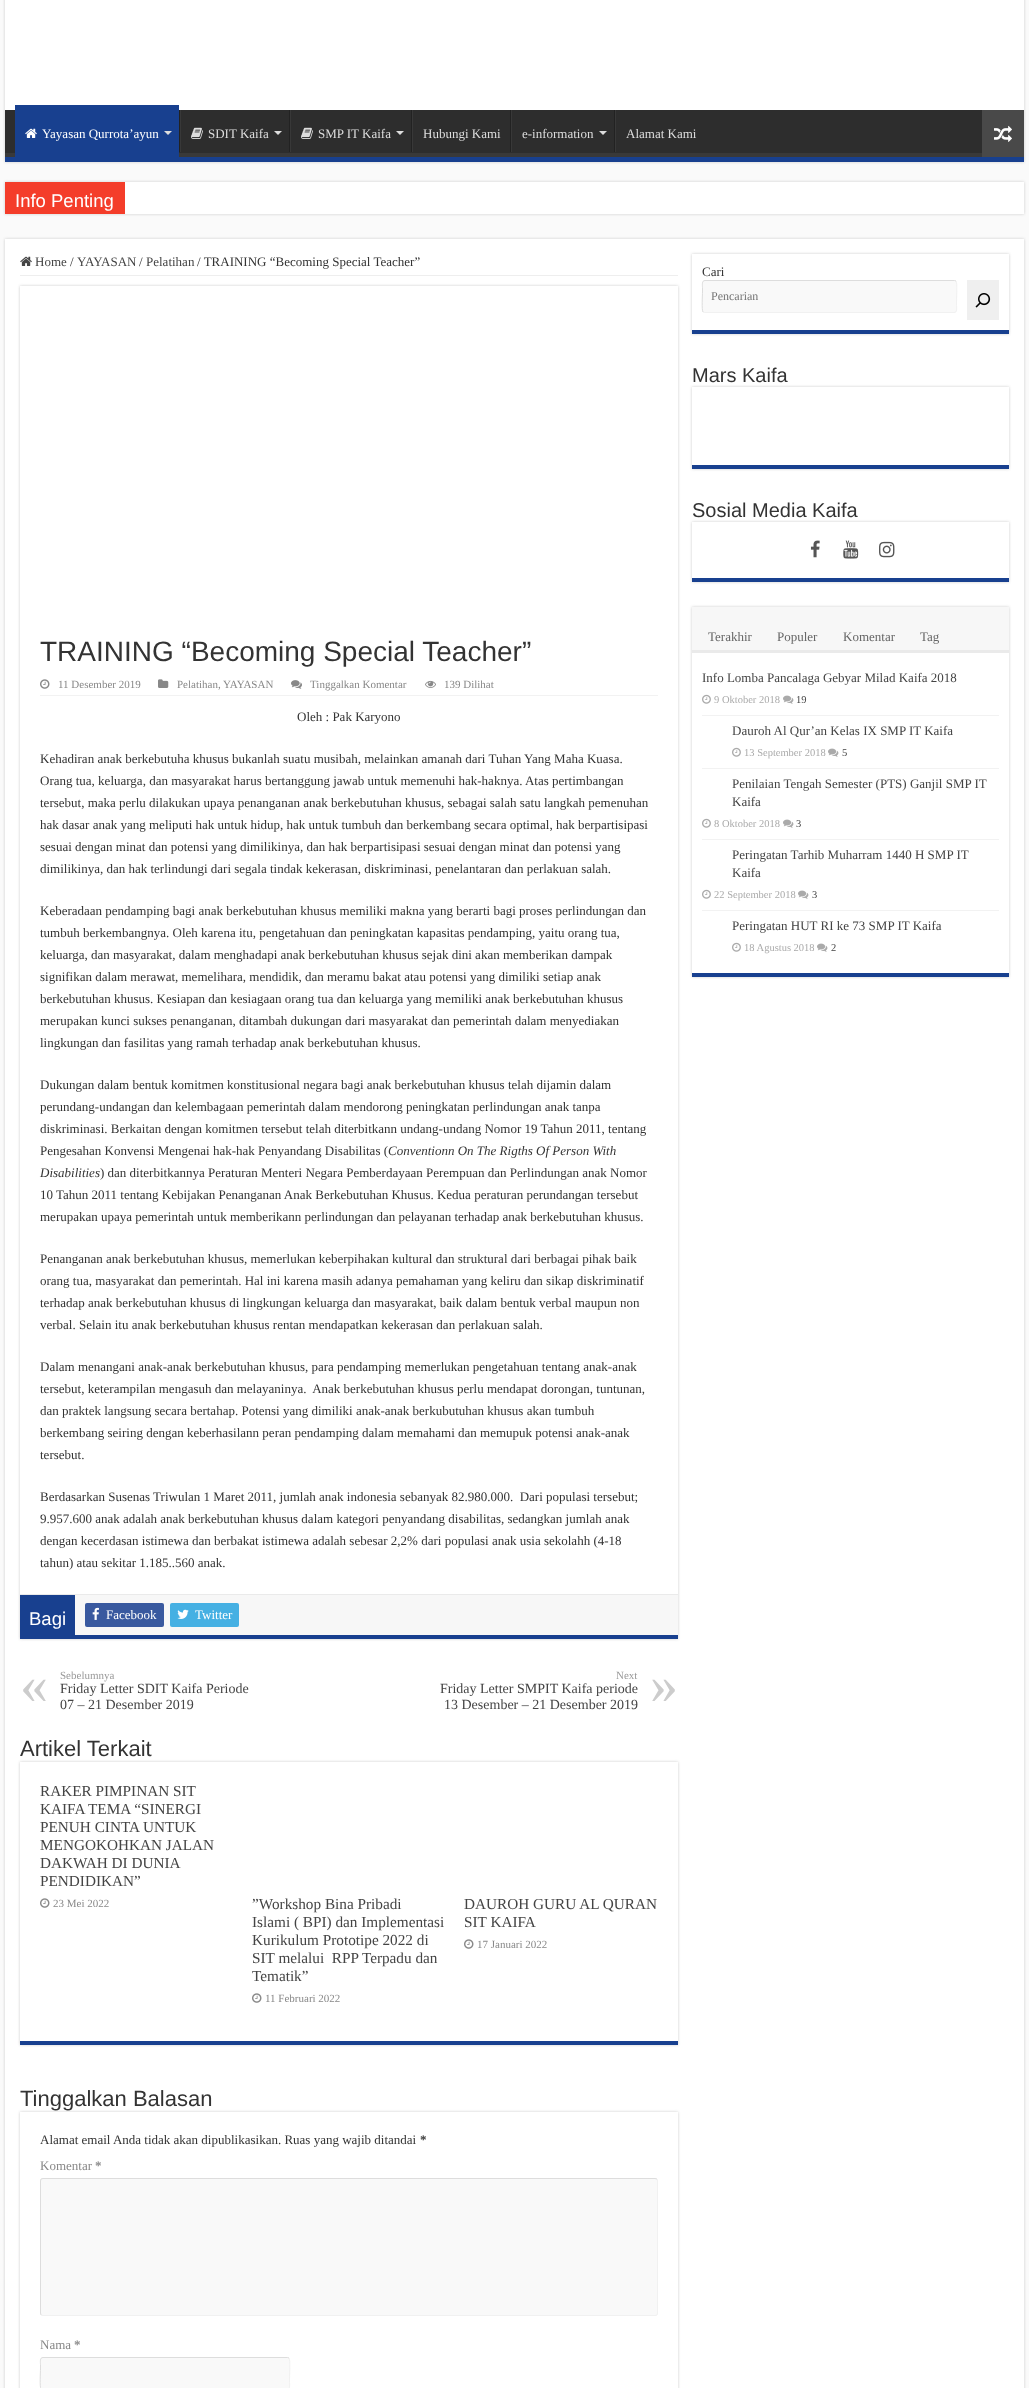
<svg xmlns="http://www.w3.org/2000/svg" width="1029" height="2388">
<style>
.a{font:13px Liberation Serif;fill:#fff}
.b{font:13px Liberation Serif;fill:#ddd}
.c{font:18.5px Liberation Sans;fill:#fff}
.d{font:13px Liberation Serif;fill:#444}
.e{font:13px Liberation Serif;fill:#333}
.f{font:28px Liberation Sans;fill:#333}
.g{font:11px Liberation Serif;fill:#888}
.h{font:italic 13px Liberation Serif;fill:#333}
.i{font:11px Liberation Serif;fill:#999}
.j{font:56px Liberation Serif;fill:#ccc}
.k{font:14px Liberation Serif;fill:#444}
.l{font:22px Liberation Sans;fill:#333}
.m{font:15.25px Liberation Serif;fill:#444}
.n{font:bold 13px Liberation Serif;fill:#333}
.o{font:13px Liberation Serif;fill:#888}
.p{font:bold 13px Liberation Serif;fill:#888}
.q{font:12px Liberation Serif;fill:#757575}
.r{font:20px Liberation Sans;fill:#333}
.s{font:13px Liberation Serif;fill:#666}
.t{font:10.5px Liberation Serif;fill:#aaa}
.u{font:10.5px Liberation Serif;fill:#444}
</style>
<defs>
<clipPath id="clip1"><path d="M5 110h1019v47H5z"/></clipPath>
<clipPath id="clip2"><path d="M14 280h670v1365h-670zm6 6h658v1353h-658z" clip-rule="evenodd"/></clipPath>
<clipPath id="clip3"><path d="M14 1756h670v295h-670zm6 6h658v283h-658z" clip-rule="evenodd"/></clipPath>
<clipPath id="clip4"><path d="M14 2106h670v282h-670zm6 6h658v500h-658z" clip-rule="evenodd"/></clipPath>
<clipPath id="clip5"><path d="M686 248h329v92h-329zm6 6h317v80h-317z" clip-rule="evenodd"/></clipPath>
<clipPath id="clip6"><path d="M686 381h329v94h-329zm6 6h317v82h-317z" clip-rule="evenodd"/></clipPath>
<clipPath id="clip7"><path d="M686 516h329v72h-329zm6 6h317v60h-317z" clip-rule="evenodd"/></clipPath>
<clipPath id="clip8"><path d="M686 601h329v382h-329zm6 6h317v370h-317z" clip-rule="evenodd"/></clipPath>
</defs>
<rect width="100%" height="100%" fill="#fafafa"/>
<path fill="#cacaca" filter="blur(1.5px)" d="M5 -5h1019v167H5z"/>
<path fill="#fff" d="M5 0h1019v110H5z"/>
<path fill="#2d2d2d" d="M5 110h977v43H5z"/>
<g clip-path="url(#clip1)">
<path fill="#393939" fill-rule="evenodd" d="M-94 11h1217v245h-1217zm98 93h1020v40c0 1 1 9-1 9h-1019l-1-1v-48z"/>
</g>
<path fill="#18408f" d="M5 157h1019v5H5z"/>
<path fill="#18408f" d="M15 105h164v52H15z"/>
<image href="1.png" x="25" y="128" width="12" height="10"/>
<path fill="#ddd" d="M164 131h8l-4 4z"/>
<path fill="#222" d="M179 110h1v42H179z"/>
<path fill="#383838" d="M180 110h1v42H180z"/>
<image href="2.png" x="191" y="127" width="12" height="12"/>
<path fill="#ddd" d="M274 131h8l-4 4z"/>
<path fill="#222" d="M289 110h1v42H289z"/>
<path fill="#383838" d="M290 110h1v42H290z"/>
<image href="2.png" x="301" y="127" width="12" height="12"/>
<path fill="#ddd" d="M396 131h8l-4 4z"/>
<path fill="#222" d="M411 110h1v42H411z"/>
<path fill="#383838" d="M412 110h1v42H412z"/>
<path fill="#222" d="M510 110h1v42H510z"/>
<path fill="#383838" d="M511 110h1v42H511z"/>
<path fill="#ddd" d="M599 131h8l-4 4z"/>
<path fill="#222" d="M614 110h1v42H614z"/>
<path fill="#383838" d="M615 110h1v42H615z"/>
<path fill="#494949" d="M982 110h42v47H982z"/>
<image href="3.png" x="994" y="125" width="18" height="17"/>
<path fill="#cacaca" filter="blur(1.5px)" d="M5 182h1019v32H5z"/>
<path fill="#fff" d="M125 182h899v32H125z"/>
<path fill="#f43d2a" d="M5 182h120v32H5z"/>
<path fill="#cacaca" filter="blur(1.5px)" d="M5 239h1019v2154H5z"/>
<path fill="#fff" d="M5 239h1019v2149H5z"/>
<path fill="#eee" d="M20 275h658v1H20z"/>
<image href="4.png" x="20" y="256" width="12" height="10"/>
<g clip-path="url(#clip2)">
<path fill="#cacaca" filter="blur(1.5px)" d="M20 286h658v1353H20z"/>
</g>
<path fill="#18408f" d="M20 1635h658v4H20z"/>
<path fill="#f2f2f2" d="M40 695h618v1H40z"/>
<image href="5.png" x="40" y="679" width="10" height="10"/>
<image href="6.png" x="158" y="679" width="11" height="9"/>
<image href="7.png" x="291" y="680" width="11" height="9"/>
<image href="8.png" x="425" y="680" width="11" height="8"/>
<path fill="#f7f7f7" d="M75 1595h603v40H75z"/>
<path fill="#eaeaea" d="M20 1594h658v1H20z"/>
<path fill="#18408f" d="M20 1595h55v40H20z"/>
<rect fill="#39599f" x="85" y="1603" width="79" height="24" rx="2"/>
<image href="9.png" x="92" y="1607" width="7" height="13"/>
<rect fill="#45b0e3" x="170" y="1603" width="69" height="24" rx="2"/>
<image href="10.png" x="177" y="1609" width="12" height="10"/>
<g clip-path="url(#clip3)">
<path fill="#cacaca" filter="blur(1.5px)" d="M20 1762h658v283H20z"/>
</g>
<path fill="#18408f" d="M20 2041h658v4H20z"/>
<image href="5.png" x="40" y="1898" width="10" height="10"/>
<image href="5.png" x="252" y="1993" width="10" height="10"/>
<image href="5.png" x="464" y="1939" width="10" height="10"/>
<g clip-path="url(#clip4)">
<path fill="#cacaca" filter="blur(1.5px)" d="M20 2112h658v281H20z"/>
</g>
<rect fill="#f9f9f9" x="40" y="2178" width="618" height="138" rx="3"/>
<path fill="none" stroke="#f1f1f1" d="M657 2179l.5 2v132l-.5 2l-2 .5h-612l-2-.5"/>
<path fill="none" stroke="#ddd" d="M41 2315l-.5-2v-132l.5-2l2-.5h612l2 .5"/>
<rect fill="#f9f9f9" x="40" y="2357" width="250" height="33" rx="3"/>
<path fill="none" stroke="#f1f1f1" d="M289 2358c1.5 2 .5 17 .5 20v4.5c0 2 1 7-2.5 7h-244.5l-1.5-.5"/>
<path fill="none" stroke="#ddd" d="M41 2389c-1.5-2-.5-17-.5-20v-4.5c0-2-1-7 2.5-7h244.5l1.5 .5"/>
<g clip-path="url(#clip5)">
<path fill="#cacaca" filter="blur(1.5px)" d="M692 254h317v80H692z"/>
</g>
<path fill="#18408f" d="M692 330h317v4H692z"/>
<rect fill="#f9f9f9" x="702" y="280" width="255" height="33" rx="3"/>
<path fill="none" stroke="#f1f1f1" d="M956 281c1.5 2 .5 17 .5 20v4.5c0 2 1 7-2.5 7h-249.5l-1.5-.5"/>
<path fill="none" stroke="#ddd" d="M703 312c-1.5-2-.5-17-.5-20v-4.5c0-2-1-7 2.5-7h249.5l1.5 .5"/>
<path fill="#efefef" d="M967 280h32v40H967z"/>
<image href="11.png" x="975" y="293" width="16" height="15"/>
<g clip-path="url(#clip6)">
<path fill="#cacaca" filter="blur(1.5px)" d="M692 387h317v82H692z"/>
</g>
<path fill="#18408f" d="M692 465h317v4H692z"/>
<g clip-path="url(#clip7)">
<path fill="#cacaca" filter="blur(1.5px)" d="M692 522h317v60H692z"/>
</g>
<path fill="#18408f" d="M692 578h317v4H692z"/>
<image href="12.png" x="810" y="540" width="10" height="18"/>
<image href="13.png" x="843" y="540" width="16" height="19"/>
<image href="14.png" x="879" y="541" width="16" height="17"/>
<g clip-path="url(#clip8)">
<path fill="#cacaca" filter="blur(1.5px)" d="M692 607h317v370H692z"/>
</g>
<path fill="#18408f" d="M692 973h317v4H692z"/>
<path fill="#f7f7f7" d="M692 607h317v43H692z"/>
<path fill="#eaeaea" d="M692 650h317v3H692z"/>
<path fill="#f2f2f2" d="M702 715h297v1H702z"/>
<image href="15.png" x="702" y="694" width="9" height="10"/>
<image href="16.png" x="783" y="695" width="11" height="9"/>
<path fill="#f2f2f2" d="M702 768h297v1H702z"/>
<image href="15.png" x="732" y="747" width="9" height="10"/>
<image href="16.png" x="828" y="748" width="11" height="9"/>
<path fill="#f2f2f2" d="M702 839h297v1H702z"/>
<image href="15.png" x="702" y="818" width="9" height="10"/>
<image href="16.png" x="783" y="819" width="11" height="9"/>
<path fill="#f2f2f2" d="M702 910h297v1H702z"/>
<image href="15.png" x="702" y="889" width="9" height="10"/>
<image href="16.png" x="798" y="890" width="11" height="9"/>
<image href="15.png" x="732" y="942" width="9" height="10"/>
<image href="16.png" x="817" y="943" width="11" height="9"/>
<text class="a" x="42" y="138">Yayasan Qurrota’ayun</text>
<text class="b" x="208" y="138">SDIT Kaifa</text>
<text class="b" x="318" y="138">SMP IT Kaifa</text>
<text class="b" x="423" y="138">Hubungi Kami</text>
<text class="b" x="522" y="138">e-information</text>
<text class="b" x="626" y="138">Alamat Kami</text>
<text class="c" x="15" y="207">Info Penting</text>
<text class="d" x="35" y="266">Home</text>
<text class="e" x="70" y="266">/</text>
<text class="d" x="77" y="266">YAYASAN</text>
<text class="e" x="139" y="266">/</text>
<text class="d" x="146" y="266">Pelatihan</text>
<text class="e" x="197" y="266">/ TRAINING “Becoming Special Teacher”</text>
<text class="f" x="40" y="661">TRAINING “Becoming Special Teacher”</text>
<text class="g" x="58" y="688">11 Desember 2019</text>
<text class="g" x="177" y="688">Pelatihan,</text>
<text class="g" x="223" y="688">YAYASAN</text>
<text class="g" x="310" y="688">Tinggalkan Komentar</text>
<text class="g" x="444" y="688">139 Dilihat</text>
<text class="e" x="297" y="721">Oleh : Pak Karyono</text>
<text class="e" x="40" y="763">Kehadiran anak berkebutuha khusus bukanlah suatu musibah, melainkan amanah dari Tuhan Yang Maha Kuasa.</text>
<text class="e" x="40" y="785">Orang tua, keluarga, dan masyarakat harus bertanggung jawab untuk memenuhi hak-haknya. Atas pertimbangan</text>
<text class="e" x="40" y="807">tersebut, maka perlu dilakukan upaya penanganan anak berkebutuhan khusus, sebagai salah satu langkah pemenuhan</text>
<text class="e" x="40" y="829">hak dasar anak yang meliputi hak untuk hidup, hak untuk tumbuh dan berkembang secara optimal, hak berpartisipasi</text>
<text class="e" x="40" y="851">sesuai dengan minat dan potensi yang dimilikinya, dan hak berpartisipasi sesuai dengan minat dan potensi yang</text>
<text class="e" x="40" y="873">dimilikinya, dan hak terlindungi dari segala tindak kekerasan, diskriminasi, penelantaran dan perlakuan salah.</text>
<text class="e" x="40" y="915">Keberadaan pendamping bagi anak berkebutuhan khusus memiliki makna yang berarti bagi proses perlindungan dan</text>
<text class="e" x="40" y="937">tumbuh berkembangnya. Oleh karena itu, pengetahuan dan peningkatan kapasitas pendamping, yaitu orang tua,</text>
<text class="e" x="40" y="959">keluarga, dan masyarakat, dalam menghadapi anak berkebutuhan khusus sejak dini akan memberikan dampak</text>
<text class="e" x="40" y="981">signifikan dalam merawat, memelihara, mendidik, dan meramu bakat atau potensi yang dimiliki setiap anak</text>
<text class="e" x="40" y="1003">berkebutuhan khusus. Kesiapan dan kesiagaan orang tua dan keluarga yang memiliki anak berkebutuhan khusus</text>
<text class="e" x="40" y="1025">merupakan kunci sukses penanganan, ditambah dukungan dari masyarakat dan pemerintah dalam menyediakan</text>
<text class="e" x="40" y="1047">lingkungan dan fasilitas yang ramah terhadap anak berkebutuhan khusus.</text>
<text class="e" x="40" y="1089">Dukungan dalam bentuk komitmen konstitusional negara bagi anak berkebutuhan khusus telah dijamin dalam</text>
<text class="e" x="40" y="1111">perundang-undangan dan kelembagaan pemerintah dalam mendorong peningkatan perlindungan anak tanpa</text>
<text class="e" x="40" y="1133">diskriminasi. Berkaitan dengan komitmen tersebut telah diterbitkann undang-undang Nomor 19 Tahun 2011, tentang</text>
<text class="e" x="40" y="1155">Pengesahan Konvensi Mengenai hak-hak Penyandang Disabilitas (</text>
<text class="h" x="388" y="1155">Conventionn On The Rigths Of Person With</text>
<text class="h" x="40" y="1177">Disabilities</text>
<text class="e" x="100" y="1177">) dan diterbitkannya Peraturan Menteri Negara Pemberdayaan Perempuan dan Perlindungan anak Nomor</text>
<text class="e" x="40" y="1199">10 Tahun 2011 tentang Kebijakan Penanganan Anak Berkebutuhan Khusus. Kedua peraturan perundangan tersebut</text>
<text class="e" x="40" y="1221">merupakan upaya pemerintah untuk memberikann perlindungan dan pelayanan terhadap anak berkebutuhan khusus.</text>
<text class="e" x="40" y="1263">Penanganan anak berkebutuhan khusus, memerlukan keberpihakan kultural dan struktural dari berbagai pihak baik</text>
<text class="e" x="40" y="1285">orang tua, masyarakat dan pemerintah. Hal ini karena masih adanya pemahaman yang keliru dan sikap diskriminatif</text>
<text class="e" x="40" y="1307">terhadap anak berkebutuhan khusus di lingkungan keluarga dan masyarakat, baik dalam bentuk verbal maupun non</text>
<text class="e" x="40" y="1329">verbal. Selain itu anak berkebutuhan khusus rentan mendapatkan kekerasan dan perlakuan salah.</text>
<text class="e" x="40" y="1371">Dalam menangani anak-anak berkebutuhan khusus, para pendamping memerlukan pengetahuan tentang anak-anak</text>
<text class="e" xml:space="preserve" x="40" y="1393">tersebut, keterampilan mengasuh dan melayaninya.  Anak berkebutuhan khusus perlu mendapat dorongan, tuntunan,</text>
<text class="e" x="40" y="1415">dan praktek langsung secara bertahap. Potensi yang dimiliki anak-anak berkubutuhan khusus akan tumbuh</text>
<text class="e" x="40" y="1437">berkembang seiring dengan keberhasilann peran pendamping dalam memahami dan memupuk potensi anak-anak</text>
<text class="e" x="40" y="1459">tersebut.</text>
<text class="e" xml:space="preserve" x="40" y="1501">Berdasarkan Susenas Triwulan 1 Maret 2011, jumlah anak indonesia sebanyak 82.980.000.  Dari populasi tersebut;</text>
<text class="e" x="40" y="1523">9.957.600 anak adalah anak berkebutuhan khusus dalam kategori penyandang disabilitas, sedangkan jumlah anak</text>
<text class="e" x="40" y="1545">dengan kecerdasan istimewa dan berbakat istimewa adalah sebesar 2,2% dari populasi anak usia sekolahh (4-18</text>
<text class="e" x="40" y="1567">tahun) atau sekitar 1.185..560 anak.</text>
<text class="c" x="29" y="1625">Bagi</text>
<text class="a" x="106" y="1619">Facebook</text>
<text class="a" x="195" y="1619">Twitter</text>
<text class="i" x="60" y="1679">Sebelumnya</text>
<text class="j" x="20" y="1703">«</text>
<text class="k" x="60" y="1693">Friday Letter SDIT Kaifa Periode</text>
<text class="k" x="60" y="1709">07 – 21 Desember 2019</text>
<text class="i" x="616" y="1679">Next</text>
<text class="k" x="440" y="1693">Friday Letter SMPIT Kaifa periode</text>
<text class="j" x="650" y="1703">»</text>
<text class="k" x="444" y="1709">13 Desember – 21 Desember 2019</text>
<text class="l" x="20" y="1756">Artikel Terkait</text>
<text class="m" x="40" y="1796">RAKER PIMPINAN SIT</text>
<text class="m" x="40" y="1814">KAIFA</text>
<text class="m" x="88" y="1814">TEMA “SINERGI</text>
<text class="m" x="40" y="1832">PENUH CINTA UNTUK</text>
<text class="m" x="40" y="1850">MENGOKOHKAN JALAN</text>
<text class="m" x="40" y="1868">DAKWAH DI DUNIA</text>
<text class="m" x="40" y="1886">PENDIDIKAN”</text>
<text class="g" x="53" y="1907">23 Mei 2022</text>
<text class="m" x="252" y="1909">”Workshop Bina Pribadi</text>
<text class="m" x="252" y="1927">Islami ( BPI) dan Implementasi</text>
<text class="m" x="252" y="1945">Kurikulum Prototipe 2022 di</text>
<text class="m" xml:space="preserve" x="252" y="1963">SIT melalui  RPP Terpadu dan</text>
<text class="m" x="252" y="1981">Tematik”</text>
<text class="g" x="265" y="2002">11 Februari 2022</text>
<text class="m" x="464" y="1909">DAUROH GURU AL QURAN</text>
<text class="m" x="464" y="1927">SIT KAIFA</text>
<text class="g" x="477" y="1948">17 Januari 2022</text>
<text class="l" x="20" y="2106">Tinggalkan Balasan</text>
<text class="e" x="40" y="2144">Alamat email Anda tidak akan dipublikasikan. Ruas yang wajib ditandai</text>
<text class="n" x="420" y="2144">*</text>
<text class="o" x="40" y="2170">Komentar</text>
<text class="p" x="95" y="2170">*</text>
<text class="o" x="40" y="2349">Nama</text>
<text class="p" x="74" y="2349">*</text>
<text class="e" x="702" y="276">Cari</text>
<text class="q" x="711" y="300">Pencarian</text>
<text class="r" x="692" y="382">Mars Kaifa</text>
<text class="r" x="692" y="517">Sosial Media Kaifa</text>
<text class="s" x="708" y="641">Terakhir</text>
<text class="s" x="777" y="641">Populer</text>
<text class="s" x="843" y="641">Komentar</text>
<text class="s" x="920" y="641">Tag</text>
<text class="d" x="702" y="682">Info Lomba Pancalaga Gebyar Milad Kaifa 2018</text>
<text class="t" x="714" y="703">9 Oktober 2018</text>
<text class="u" x="796" y="703">19</text>
<text class="d" x="732" y="735">Dauroh Al Qur’an Kelas IX SMP IT Kaifa</text>
<text class="t" x="744" y="756">13 September 2018</text>
<text class="u" x="842" y="756">5</text>
<text class="d" x="732" y="788">Penilaian Tengah Semester (PTS) Ganjil SMP IT</text>
<text class="d" x="732" y="806">Kaifa</text>
<text class="t" x="714" y="827">8 Oktober 2018</text>
<text class="u" x="796" y="827">3</text>
<text class="d" x="732" y="859">Peringatan Tarhib Muharram 1440 H SMP IT</text>
<text class="d" x="732" y="877">Kaifa</text>
<text class="t" x="714" y="898">22 September 2018</text>
<text class="u" x="812" y="898">3</text>
<text class="d" x="732" y="930">Peringatan HUT RI ke 73 SMP IT Kaifa</text>
<text class="t" x="744" y="951">18 Agustus 2018</text>
<text class="u" x="831" y="951">2</text>
</svg>
